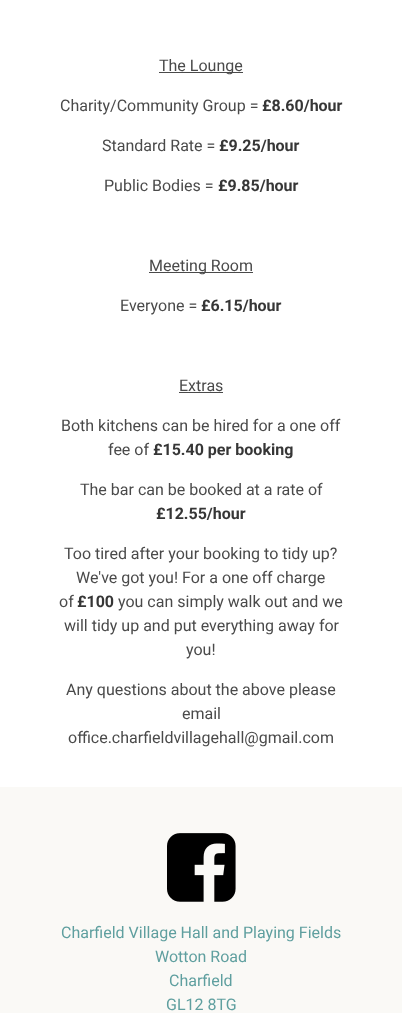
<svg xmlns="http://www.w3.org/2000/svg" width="402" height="1013">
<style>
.a{font:16px Roboto;fill:#4a4a4a}
.b{font:bold 16px Roboto;fill:#363636}
.c{font:16px Roboto;fill:#5f9f9f}
</style>
<rect width="100%" height="100%" fill="#fff"/>
<path fill="#4a4a4a" d="M159 72h84v1H159z"/>
<path fill="#4a4a4a" d="M149 272h104v1H149z"/>
<path fill="#4a4a4a" d="M179 392h44v1H179z"/>
<path fill="#faf9f6" d="M0 787h402v226H0z"/>
<image href="1.png" x="167" y="833" width="69" height="69"/>
<text class="a" x="159" y="71">The Lounge</text>
<text class="a" x="60" y="111">Charity/Community Group =</text>
<text class="b" x="262" y="111">£8.60/hour</text>
<text class="a" x="102" y="151">Standard Rate =</text>
<text class="b" x="219" y="151">£9.25/hour</text>
<text class="a" x="104" y="191">Public Bodies =</text>
<text class="b" x="218" y="191">£9.85/hour</text>
<text class="a" x="149" y="271">Meeting Room</text>
<text class="a" x="120" y="311">Everyone =</text>
<text class="b" x="201" y="311">£6.15/hour</text>
<text class="a" x="179" y="391">Extras</text>
<text class="a" x="61" y="431">Both kitchens can be hired for a one off</text>
<text class="a" x="108" y="455">fee of</text>
<text class="b" x="153" y="455">£15.40 per booking</text>
<text class="a" x="80" y="495">The bar can be booked at a rate of</text>
<text class="b" x="156" y="519">£12.55/hour</text>
<text class="a" x="64" y="559">Too tired after your booking to tidy up?</text>
<text class="a" x="76" y="583">We've got you! For a one off charge</text>
<text class="a" x="59" y="607">of</text>
<text class="b" x="77" y="607">£100</text>
<text class="a" x="118" y="607">you can simply walk out and we</text>
<text class="a" x="64" y="631">will tidy up and put everything away for</text>
<text class="a" x="186" y="655">you!</text>
<text class="a" x="66" y="695">Any questions about the above please</text>
<text class="a" x="182" y="719">email</text>
<text class="a" x="68" y="743">office.charfieldvillagehall@gmail.com</text>
<text class="c" x="61" y="938">Charfield Village Hall and Playing Fields</text>
<text class="c" x="155" y="962">Wotton Road</text>
<text class="c" x="169" y="986">Charfield</text>
<text class="c" x="166" y="1010">GL12 8TG</text>
</svg>
